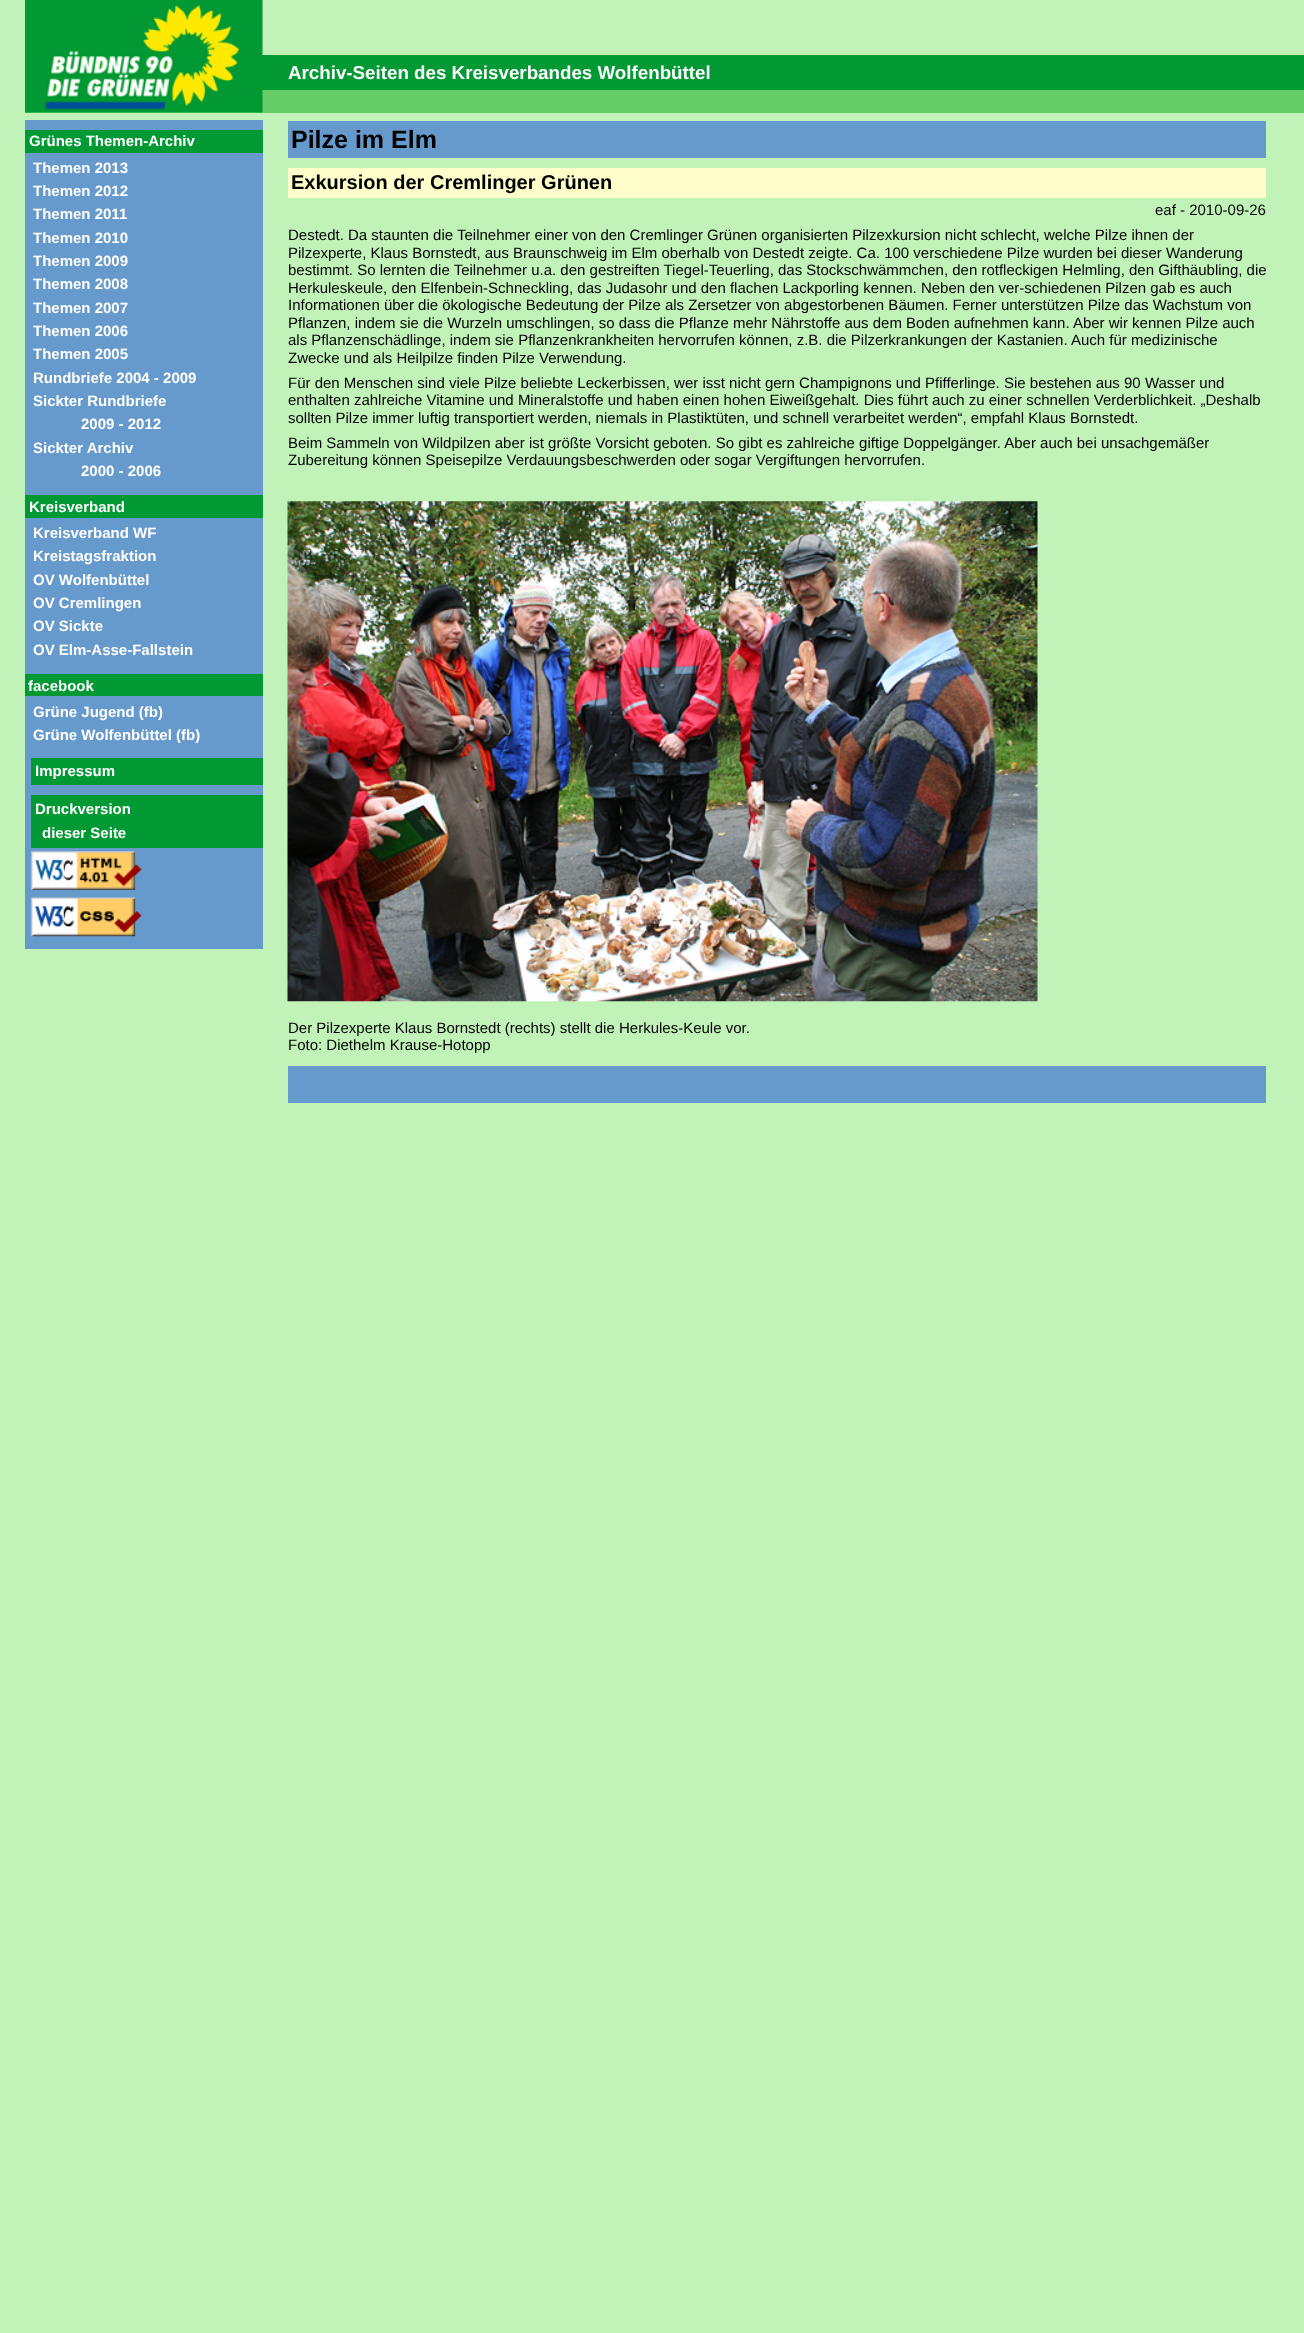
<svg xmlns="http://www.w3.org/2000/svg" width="1304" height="2333">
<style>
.a{font:bold 18.75px Liberation Sans;fill:#fff}
.b{font:bold 15px Liberation Sans;fill:#fff}
.c{font:bold 25px Liberation Sans;fill:#000}
.d{font:bold 20px Liberation Sans;fill:#000}
.e{font:15px Liberation Sans;fill:#000}
</style>
<rect width="100%" height="100%" fill="#c1f3b8"/>
<path fill="#093" d="M262 55h1042v35H262z"/>
<path fill="#6c6" d="M25 90h1279v23H25z"/>
<image href="1.png" x="25" y="0" width="238" height="113"/>
<path fill="#69c" d="M25 120h238v829H25z"/>
<path fill="#093" d="M25 130h238v23H25z"/>
<path fill="#093" d="M25 495h238v23H25z"/>
<path fill="#093" d="M25 674h238v22H25z"/>
<path fill="#093" d="M31 758h232v27H31z"/>
<path fill="#093" d="M31 795h232v53H31z"/>
<image href="2.png" x="31" y="851" width="111" height="39"/>
<image href="3.png" x="31" y="897" width="111" height="40"/>
<path fill="#69c" d="M288 121h978v37H288z"/>
<path fill="#ffc" d="M288 168h978v30H288z"/>
<image href="4.png" x="287" y="501" width="751" height="501"/>
<path fill="#69c" d="M288 1066h978v37H288z"/>
<text class="a" x="288" y="79">Archiv-Seiten des Kreisverbandes Wolfenbüttel</text>
<text class="b" x="29" y="146">Grünes Themen-Archiv</text>
<text class="b" x="33" y="173">Themen 2013</text>
<text class="b" x="33" y="196">Themen 2012</text>
<text class="b" x="33" y="219">Themen 2011</text>
<text class="b" x="33" y="243">Themen 2010</text>
<text class="b" x="33" y="266">Themen 2009</text>
<text class="b" x="33" y="289">Themen 2008</text>
<text class="b" x="33" y="313">Themen 2007</text>
<text class="b" x="33" y="336">Themen 2006</text>
<text class="b" x="33" y="359">Themen 2005</text>
<text class="b" x="33" y="383">Rundbriefe 2004 - 2009</text>
<text class="b" x="33" y="406">Sickter Rundbriefe</text>
<text class="b" x="81" y="429">2009 - 2012</text>
<text class="b" x="33" y="453">Sickter Archiv</text>
<text class="b" x="81" y="476">2000 - 2006</text>
<text class="b" x="29" y="512">Kreisverband</text>
<text class="b" x="33" y="538">Kreisverband WF</text>
<text class="b" x="33" y="561">Kreistagsfraktion</text>
<text class="b" x="33" y="585">OV Wolfenbüttel</text>
<text class="b" x="33" y="608">OV Cremlingen</text>
<text class="b" x="33" y="631">OV Sickte</text>
<text class="b" x="33" y="655">OV Elm-Asse-Fallstein</text>
<text class="b" x="28" y="691">facebook</text>
<text class="b" x="33" y="717">Grüne Jugend (fb)</text>
<text class="b" x="33" y="740">Grüne Wolfenbüttel (fb)</text>
<text class="b" x="35" y="776">Impressum</text>
<text class="b" x="35" y="814">Druckversion</text>
<text class="b" x="42" y="838">dieser Seite</text>
<text class="c" x="291" y="148">Pilze im Elm</text>
<text class="d" x="291" y="189">Exkursion der Cremlinger Grünen</text>
<text class="e" x="1155" y="215">eaf - 2010-09-26</text>
<text class="e" x="288" y="240">Destedt. Da staunten die Teilnehmer einer von den Cremlinger Grünen organisierten Pilzexkursion nicht schlecht, welche Pilze ihnen der</text>
<text class="e" x="288" y="258">Pilzexperte, Klaus Bornstedt, aus Braunschweig im Elm oberhalb von Destedt zeigte. Ca. 100 verschiedene Pilze wurden bei dieser Wanderung</text>
<text class="e" x="288" y="275">bestimmt. So lernten die Teilnehmer u.a. den gestreiften Tiegel-Teuerling, das Stockschwämmchen, den rotfleckigen Helmling, den Gifthäubling, die</text>
<text class="e" x="288" y="293">Herkuleskeule, den Elfenbein-Schneckling, das Judasohr und den flachen Lackporling kennen. Neben den ver-schiedenen Pilzen gab es auch</text>
<text class="e" x="288" y="310">Informationen über die ökologische Bedeutung der Pilze als Zersetzer von abgestorbenen Bäumen. Ferner unterstützen Pilze das Wachstum von</text>
<text class="e" x="288" y="328">Pflanzen, indem sie die Wurzeln umschlingen, so dass die Pflanze mehr Nährstoffe aus dem Boden aufnehmen kann. Aber wir kennen Pilze auch</text>
<text class="e" x="288" y="345">als Pflanzenschädlinge, indem sie Pflanzenkrankheiten hervorrufen können, z.B. die Pilzerkrankungen der Kastanien. Auch für medizinische</text>
<text class="e" x="288" y="363">Zwecke und als Heilpilze finden Pilze Verwendung.</text>
<text class="e" x="288" y="388">Für den Menschen sind viele Pilze beliebte Leckerbissen, wer isst nicht gern Champignons und Pfifferlinge. Sie bestehen aus 90 Wasser und</text>
<text class="e" x="288" y="405">enthalten zahlreiche Vitamine und Mineralstoffe und haben einen hohen Eiweißgehalt. Dies führt auch zu einer schnellen Verderblichkeit. „Deshalb</text>
<text class="e" x="288" y="423">sollten Pilze immer luftig transportiert werden, niemals in Plastiktüten, und schnell verarbeitet werden“, empfahl Klaus Bornstedt.</text>
<text class="e" x="288" y="448">Beim Sammeln von Wildpilzen aber ist größte Vorsicht geboten. So gibt es zahlreiche giftige Doppelgänger. Aber auch bei unsachgemäßer</text>
<text class="e" x="288" y="465">Zubereitung können Speisepilze Verdauungsbeschwerden oder sogar Vergiftungen hervorrufen.</text>
<text class="e" x="288" y="1033">Der Pilzexperte Klaus Bornstedt (rechts) stellt die Herkules-Keule vor.</text>
<text class="e" x="288" y="1050">Foto: Diethelm Krause-Hotopp</text>
</svg>
